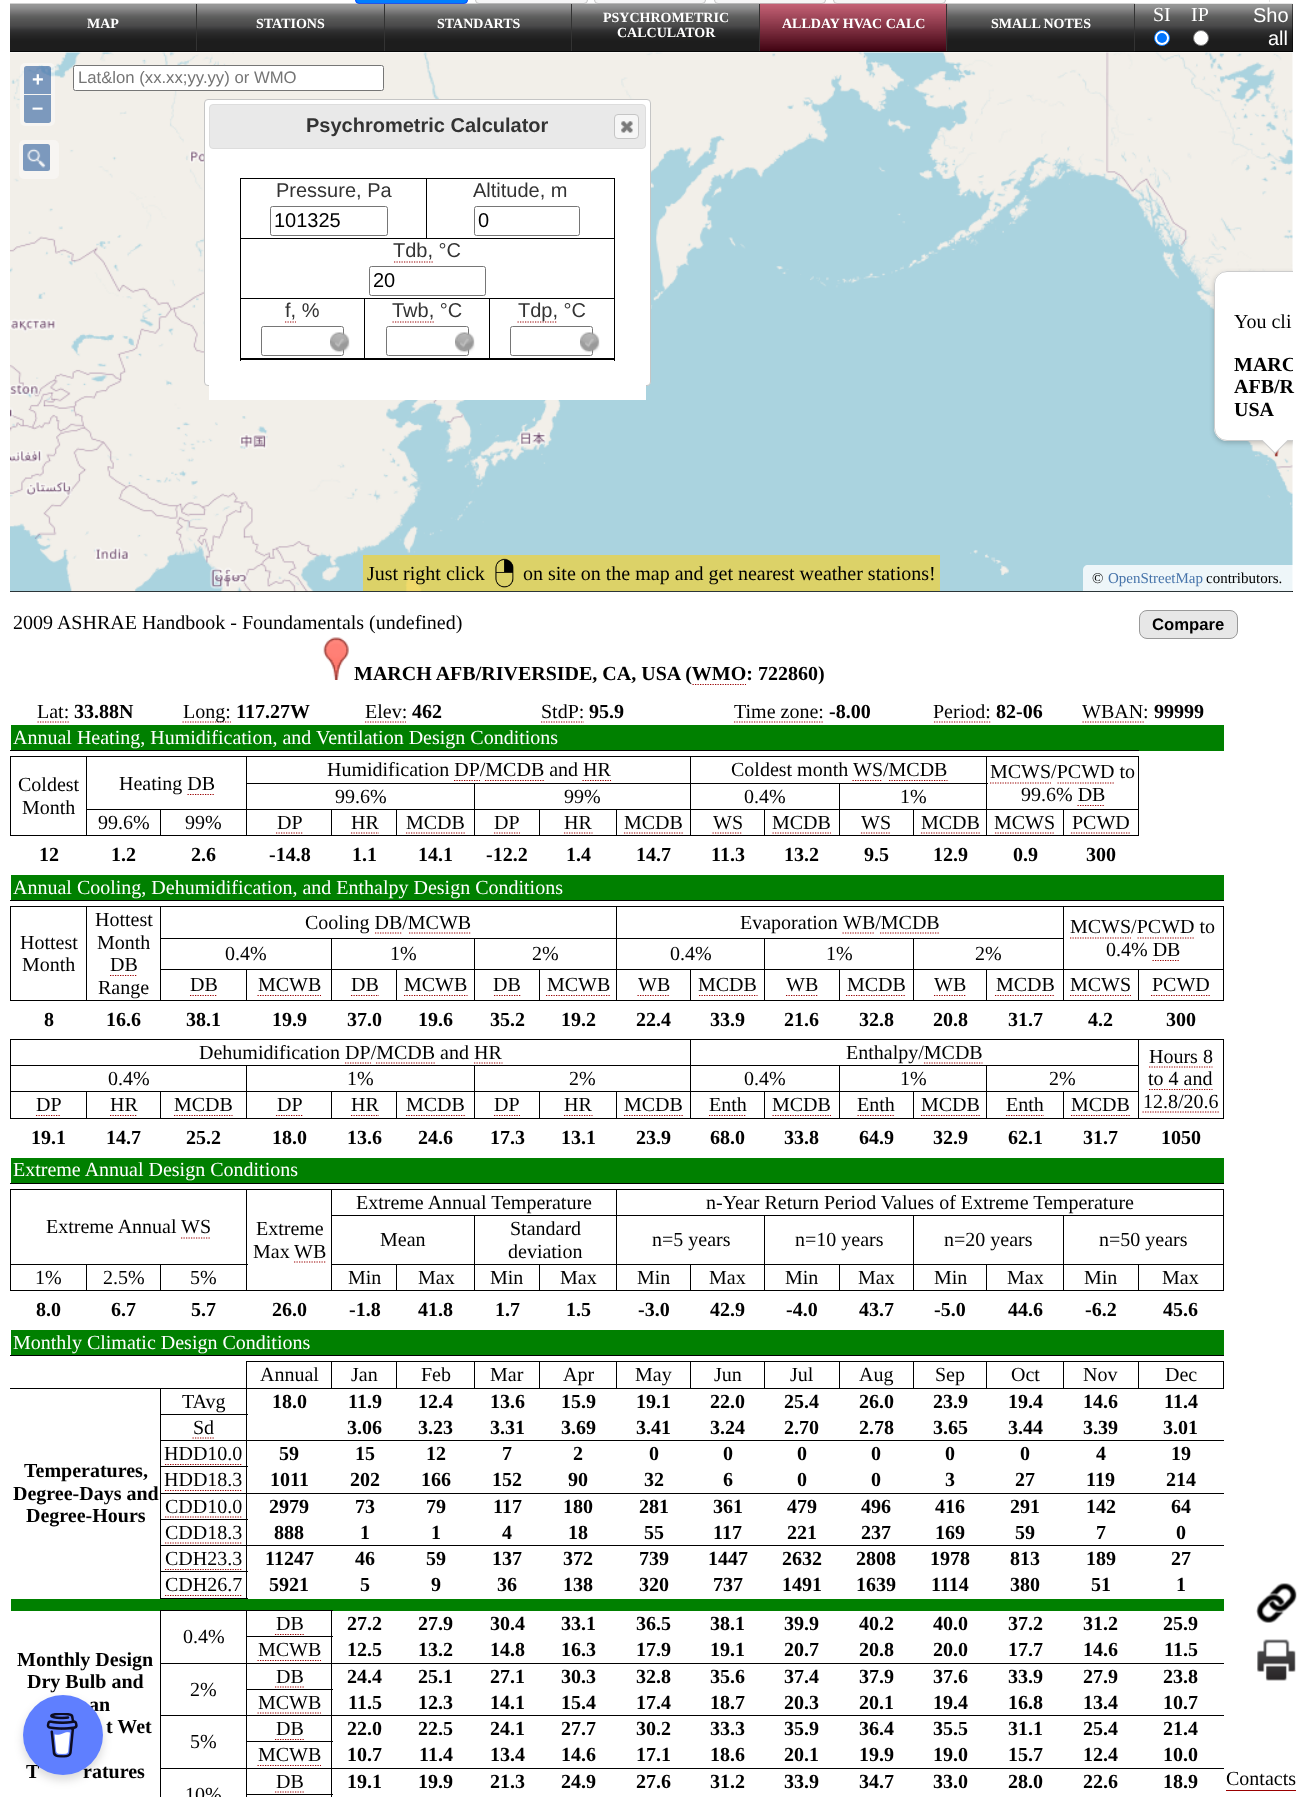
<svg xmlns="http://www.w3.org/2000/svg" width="1302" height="1797">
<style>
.a{font:bold 14px Liberation Serif;fill:#fff}
.b{font:20px Liberation Serif;fill:#fff}
.c{font:20px Liberation Sans;fill:#fff}
.d{font:16.7px Liberation Sans;fill:#757575}
.e{font:bold 20px Liberation Sans;fill:#fff}
.f{font:20px Liberation Serif;fill:#000}
.g{font:bold 20px Liberation Serif;fill:#000}
.h{font:15px Liberation Serif;fill:#000}
.i{font:15px Liberation Serif;fill:#4774aa}
.j{font:bold 20px Liberation Sans;fill:#333}
.k{font:20px Liberation Sans;fill:#333}
.l{font:20px Liberation Sans;fill:#000}
.m{font:bold 16.7px Liberation Sans;fill:#000}
</style>
<defs>
<clipPath id="clip1"><path d="M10 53h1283v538H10z"/></clipPath>
<clipPath id="clip2"><path d="M10 53h1283v538H10z"/></clipPath>
</defs>
<rect width="100%" height="100%" fill="#fff"/>
<path fill="#000" d="M1292 4h1v47H1292z"/>
<image href="1.png" x="10" y="3" width="1283" height="48"/>
<rect fill="#007fff" stroke="#003eff" x="355.5" y="-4.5" width="112" height="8" rx="3.5"/>
<rect fill="#f6f6f6" stroke="#c5c5c5" x="475.5" y="-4.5" width="112" height="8" rx="3.5"/>
<rect fill="#f6f6f6" stroke="#c5c5c5" x="594.5" y="-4.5" width="111" height="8" rx="3.5"/>
<rect fill="#f6f6f6" stroke="#c5c5c5" x="714.5" y="-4.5" width="111" height="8" rx="3.5"/>
<rect fill="#f6f6f6" stroke="#c5c5c5" x="833.5" y="-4.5" width="112" height="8" rx="3.5"/>
<path fill="#000" d="M10 51h1283v1H10z"/>
<image href="2.png" x="10" y="3" width="188" height="49"/>
<path fill="#333" d="M196 4h1v47H196z"/>
<image href="3.png" x="197" y="3" width="188" height="49"/>
<path fill="#333" d="M384 4h1v47H384z"/>
<image href="4.png" x="385" y="3" width="188" height="49"/>
<path fill="#333" d="M571 4h1v47H571z"/>
<image href="5.png" x="572" y="3" width="188" height="49"/>
<path fill="#333" d="M759 4h1v47H759z"/>
<image href="6.png" x="760" y="3" width="188" height="49"/>
<path fill="#333" d="M946 4h1v47H946z"/>
<image href="7.png" x="947" y="3" width="188" height="49"/>
<path fill="#333" d="M1134 4h1v47H1134z"/>
<circle fill="#fff" stroke="#0075ff" cx="1162" cy="38" r="7.5"/>
<circle fill="#0075ff" cx="1162" cy="38" r="5"/>
<circle fill="#fff" stroke="#767676" cx="1201" cy="38" r="7.5"/>
<path fill="#ccc" d="M1272-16h13c2 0 3 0 4 .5c-.5-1-1.5-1.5-2.5-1.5h-15c-1.5 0-2.5 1-2.5 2.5v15c0 1 .5 1.5 1 2c-1-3 0-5.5 0-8.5l-.5-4.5l.5-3.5c0-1.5 1-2 2-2z"/>
<path fill="#000" d="M10 591h1283v1H10z"/>
<image href="8.png" x="10" y="52" width="1283" height="540"/>
<rect fill="#fff" stroke="#767676" x="73.5" y="65.5" width="310" height="25" rx="2"/>
<rect fill="#ffffff66" x="20" y="63" width="35" height="63" rx="5"/>
<path fill="#003c8880" d="M26.5 66h22c1.5 0 2.5 1 2.5 2.5v25.5h-27v-25.5c0-1.5 1-2.5 2.5-2.5z"/>
<path fill="#7c99bd" d="M24 95h27v25.5c0 1.5-1 2.5-2.5 2.5h-22c-1.5 0-2.5-1-2.5-2.5z"/>
<rect fill="#f7f5f2" x="19" y="140" width="40" height="39" rx="5"/>
<rect fill="#7c99bd" x="23" y="144" width="27" height="27" rx="2.5"/>
<image href="9.png" x="27" y="148" width="19" height="20"/>
<g clip-path="url(#clip1)">
<rect fill="#00000033" filter="blur(2.5px)" x="1214" y="273" width="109" height="170" rx="13"/>
</g>
<path fill="#fff" d="M1227 271h66v170h-66c-7 0-13-6-13-13v-144c0-7 6-13 13-13z"/>
<g clip-path="url(#clip2)">
<rect fill="none" stroke="#ccc" x="1214.5" y="271.5" width="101" height="169" rx="12.5"/>
</g>
<path fill="#ccc" d="M1261 440h28l-14 14z"/>
<path fill="#fff" d="M1262.5 440h25l-12.5 12.5z"/>
<path fill="#ffffffcc" d="M1088 565h205v26h-210v-21c0-3 2-5 5-5z"/>
<path fill="#f1d134b3" d="M363 555h577v36H363z"/>
<image href="10.png" x="495" y="558" width="19" height="30"/>
<image href="11.png" x="323" y="637" width="26" height="43"/>
<path fill="none" stroke="#900" stroke-width="1.2" stroke-dasharray="1.25 1.25" d="M37.5 722h31.5"/>
<path fill="none" stroke="#900" stroke-width="1.2" stroke-dasharray="1.25 1.25" d="M182.5 722h48.5"/>
<path fill="none" stroke="#900" stroke-width="1.2" stroke-dasharray="1.25 1.25" d="M365 722h41"/>
<path fill="none" stroke="#900" stroke-width="1.2" stroke-dasharray="1.25 1.25" d="M541 722h43"/>
<path fill="none" stroke="#900" stroke-width="1.2" stroke-dasharray="1.25 1.25" d="M734 722h90"/>
<path fill="none" stroke="#900" stroke-width="1.2" stroke-dasharray="1.25 1.25" d="M934 722h57"/>
<path fill="none" stroke="#900" stroke-width="1.2" stroke-dasharray="1.25 1.25" d="M1082.5 722h61.5"/>
<path fill="#008000" d="M11 725h1213v26H11z"/>
<path fill="#000" d="M10 750h1129v1H10z"/>
<path fill="#000" d="M986 756h153v1H986z"/>
<path fill="#000" d="M839 783h149v1H839z"/>
<path fill="#000" d="M1063 809h76v1H1063z"/>
<path fill="#000" d="M1138 809h1v27H1138z"/>
<path fill="#000" d="M1063 835h76v1H1063z"/>
<path fill="#000" d="M1063 809h1v27H1063z"/>
<path fill="#000" d="M986 809h78v1H986z"/>
<path fill="#000" d="M986 835h78v1H986z"/>
<path fill="#000" d="M986 809h1v27H986z"/>
<path fill="#000" d="M913 809h75v1H913z"/>
<path fill="#000" d="M986 756h1v54H986z"/>
<path fill="#000" d="M690 756h298v1H690z"/>
<path fill="#000" d="M913 835h75v1H913z"/>
<path fill="#000" d="M913 809h1v27H913z"/>
<path fill="#000" d="M839 809h75v1H839z"/>
<path fill="#000" d="M839 835h75v1H839z"/>
<path fill="#000" d="M839 809h1v27H839z"/>
<path fill="#000" d="M764 809h76v1H764z"/>
<path fill="#000" d="M839 783h1v27H839z"/>
<path fill="#000" d="M690 783h150v1H690z"/>
<path fill="#000" d="M764 835h76v1H764z"/>
<path fill="#000" d="M764 809h1v27H764z"/>
<path fill="#000" d="M690 809h75v1H690z"/>
<path fill="#000" d="M690 835h75v1H690z"/>
<path fill="#000" d="M690 809h1v27H690z"/>
<path fill="#000" d="M616 809h75v1H616z"/>
<path fill="#000" d="M690 783h1v27H690z"/>
<path fill="#000" d="M474 783h217v1H474z"/>
<path fill="#000" d="M690 756h1v28H690z"/>
<path fill="#000" d="M246 756h445v1H246z"/>
<path fill="#000" d="M616 835h75v1H616z"/>
<path fill="#000" d="M616 809h1v27H616z"/>
<path fill="#000" d="M539 809h79v1H539z"/>
<path fill="#000" d="M539 835h79v1H539z"/>
<path fill="#000" d="M539 809h1v27H539z"/>
<path fill="#000" d="M474 809h66v1H474z"/>
<path fill="#000" d="M474 835h66v1H474z"/>
<path fill="#000" d="M474 809h1v27H474z"/>
<path fill="#000" d="M396 809h79v1H396z"/>
<path fill="#000" d="M474 783h1v27H474z"/>
<path fill="#000" d="M246 783h229v1H246z"/>
<path fill="#000" d="M396 835h79v1H396z"/>
<path fill="#000" d="M396 809h1v27H396z"/>
<path fill="#000" d="M331 809h67v1H331z"/>
<path fill="#000" d="M331 835h67v1H331z"/>
<path fill="#000" d="M331 809h1v27H331z"/>
<path fill="#000" d="M246 809h87v1H246z"/>
<path fill="#000" d="M246 835h87v1H246z"/>
<path fill="#000" d="M246 809h1v27H246z"/>
<path fill="#000" d="M160 809h88v1H160z"/>
<path fill="#000" d="M246 783h1v27H246z"/>
<path fill="#000" d="M246 756h1v28H246z"/>
<path fill="#000" d="M86 756h162v1H86z"/>
<path fill="#000" d="M160 835h88v1H160z"/>
<path fill="#000" d="M160 809h1v27H160z"/>
<path fill="#000" d="M86 809h75v1H86z"/>
<path fill="#000" d="M10 835h78v1H10z"/>
<path fill="#000" d="M86 835h75v1H86z"/>
<path fill="#000" d="M86 809h1v27H86z"/>
<path fill="#000" d="M86 756h1v54H86z"/>
<path fill="#000" d="M10 756h78v1H10z"/>
<path fill="#000" d="M10 756h1v80H10z"/>
<path fill="none" stroke="#900" stroke-width="1.2" stroke-dasharray="1.25 1.25" d="M454 780.5h26"/>
<path fill="none" stroke="#900" stroke-width="1.2" stroke-dasharray="1.25 1.25" d="M485 780.5h59"/>
<path fill="none" stroke="#900" stroke-width="1.2" stroke-dasharray="1.25 1.25" d="M582.5 780.5h28.5"/>
<path fill="none" stroke="#900" stroke-width="1.2" stroke-dasharray="1.25 1.25" d="M852.5 780.5h30"/>
<path fill="none" stroke="#900" stroke-width="1.2" stroke-dasharray="1.25 1.25" d="M889 780.5h58.5"/>
<path fill="#000" d="M1138 756h1v54H1138z"/>
<path fill="none" stroke="#900" stroke-width="1.2" stroke-dasharray="1.25 1.25" d="M990 783h61"/>
<path fill="none" stroke="#900" stroke-width="1.2" stroke-dasharray="1.25 1.25" d="M1057.5 783h57.5"/>
<path fill="none" stroke="#900" stroke-width="1.2" stroke-dasharray="1.25 1.25" d="M1077.5 805.5h27.5"/>
<path fill="none" stroke="#900" stroke-width="1.2" stroke-dasharray="1.25 1.25" d="M276 833h26.5"/>
<path fill="none" stroke="#900" stroke-width="1.2" stroke-dasharray="1.25 1.25" d="M351 833h28"/>
<path fill="none" stroke="#900" stroke-width="1.2" stroke-dasharray="1.25 1.25" d="M406 833h59"/>
<path fill="none" stroke="#900" stroke-width="1.2" stroke-dasharray="1.25 1.25" d="M494 833h26"/>
<path fill="none" stroke="#900" stroke-width="1.2" stroke-dasharray="1.25 1.25" d="M564 833h28.5"/>
<path fill="none" stroke="#900" stroke-width="1.2" stroke-dasharray="1.25 1.25" d="M624 833h60"/>
<path fill="none" stroke="#900" stroke-width="1.2" stroke-dasharray="1.25 1.25" d="M712.5 833h30"/>
<path fill="none" stroke="#900" stroke-width="1.2" stroke-dasharray="1.25 1.25" d="M772.5 833h58.5"/>
<path fill="none" stroke="#900" stroke-width="1.2" stroke-dasharray="1.25 1.25" d="M861 833h30"/>
<path fill="none" stroke="#900" stroke-width="1.2" stroke-dasharray="1.25 1.25" d="M921 833h59"/>
<path fill="none" stroke="#900" stroke-width="1.2" stroke-dasharray="1.25 1.25" d="M995 833h60"/>
<path fill="none" stroke="#900" stroke-width="1.2" stroke-dasharray="1.25 1.25" d="M1071 833h59"/>
<path fill="#008000" d="M11 875h1213v25H11z"/>
<path fill="#000" d="M10 900h1214v1H10z"/>
<path fill="#000" d="M1063 906h161v1H1063z"/>
<path fill="#000" d="M913 938h151v1H913z"/>
<path fill="#000" d="M1138 969h86v1H1138z"/>
<path fill="#000" d="M1223 969h1v32H1223z"/>
<path fill="#000" d="M1138 1000h86v1H1138z"/>
<path fill="#000" d="M1138 969h1v32H1138z"/>
<path fill="#000" d="M1063 969h76v1H1063z"/>
<path fill="#000" d="M1063 1000h76v1H1063z"/>
<path fill="#000" d="M1063 969h1v32H1063z"/>
<path fill="#000" d="M986 969h78v1H986z"/>
<path fill="#000" d="M1063 906h1v64H1063z"/>
<path fill="#000" d="M616 906h448v1H616z"/>
<path fill="#000" d="M986 1000h78v1H986z"/>
<path fill="#000" d="M986 969h1v32H986z"/>
<path fill="#000" d="M913 969h75v1H913z"/>
<path fill="#000" d="M913 1000h75v1H913z"/>
<path fill="#000" d="M913 969h1v32H913z"/>
<path fill="#000" d="M839 969h75v1H839z"/>
<path fill="#000" d="M913 938h1v32H913z"/>
<path fill="#000" d="M764 938h150v1H764z"/>
<path fill="#000" d="M839 1000h75v1H839z"/>
<path fill="#000" d="M839 969h1v32H839z"/>
<path fill="#000" d="M764 969h76v1H764z"/>
<path fill="#000" d="M764 1000h76v1H764z"/>
<path fill="#000" d="M764 969h1v32H764z"/>
<path fill="#000" d="M690 969h75v1H690z"/>
<path fill="#000" d="M764 938h1v32H764z"/>
<path fill="#000" d="M616 938h149v1H616z"/>
<path fill="#000" d="M690 1000h75v1H690z"/>
<path fill="#000" d="M690 969h1v32H690z"/>
<path fill="#000" d="M616 969h75v1H616z"/>
<path fill="#000" d="M616 1000h75v1H616z"/>
<path fill="#000" d="M616 969h1v32H616z"/>
<path fill="#000" d="M539 969h79v1H539z"/>
<path fill="#000" d="M616 938h1v32H616z"/>
<path fill="#000" d="M474 938h144v1H474z"/>
<path fill="#000" d="M616 906h1v33H616z"/>
<path fill="#000" d="M160 906h458v1H160z"/>
<path fill="#000" d="M539 1000h79v1H539z"/>
<path fill="#000" d="M539 969h1v32H539z"/>
<path fill="#000" d="M474 969h66v1H474z"/>
<path fill="#000" d="M474 1000h66v1H474z"/>
<path fill="#000" d="M474 969h1v32H474z"/>
<path fill="#000" d="M396 969h79v1H396z"/>
<path fill="#000" d="M474 938h1v32H474z"/>
<path fill="#000" d="M331 938h144v1H331z"/>
<path fill="#000" d="M396 1000h79v1H396z"/>
<path fill="#000" d="M396 969h1v32H396z"/>
<path fill="#000" d="M331 969h67v1H331z"/>
<path fill="#000" d="M331 1000h67v1H331z"/>
<path fill="#000" d="M331 969h1v32H331z"/>
<path fill="#000" d="M246 969h87v1H246z"/>
<path fill="#000" d="M331 938h1v32H331z"/>
<path fill="#000" d="M160 938h173v1H160z"/>
<path fill="#000" d="M246 1000h87v1H246z"/>
<path fill="#000" d="M246 969h1v32H246z"/>
<path fill="#000" d="M160 969h88v1H160z"/>
<path fill="#000" d="M160 1000h88v1H160z"/>
<path fill="#000" d="M160 969h1v32H160z"/>
<path fill="#000" d="M160 938h1v32H160z"/>
<path fill="#000" d="M160 906h1v33H160z"/>
<path fill="#000" d="M86 906h75v1H86z"/>
<path fill="#000" d="M10 1000h78v1H10z"/>
<path fill="#000" d="M86 1000h75v1H86z"/>
<path fill="#000" d="M86 906h1v95H86z"/>
<path fill="#000" d="M10 906h78v1H10z"/>
<path fill="#000" d="M10 906h1v95H10z"/>
<path fill="none" stroke="#900" stroke-width="1.2" stroke-dasharray="1.25 1.25" d="M110 975.5h27.5"/>
<path fill="none" stroke="#900" stroke-width="1.2" stroke-dasharray="1.25 1.25" d="M842.5 933h32.5"/>
<path fill="none" stroke="#900" stroke-width="1.2" stroke-dasharray="1.25 1.25" d="M880 933h59"/>
<path fill="#000" d="M1223 906h1v64H1223z"/>
<path fill="none" stroke="#900" stroke-width="1.2" stroke-dasharray="1.25 1.25" d="M1070 938h61"/>
<path fill="none" stroke="#900" stroke-width="1.2" stroke-dasharray="1.25 1.25" d="M1137.5 938h57.5"/>
<path fill="none" stroke="#900" stroke-width="1.2" stroke-dasharray="1.25 1.25" d="M1152.5 960.5h27.5"/>
<path fill="none" stroke="#900" stroke-width="1.2" stroke-dasharray="1.25 1.25" d="M190 995.5h27.5"/>
<path fill="none" stroke="#900" stroke-width="1.2" stroke-dasharray="1.25 1.25" d="M257.5 995.5h63.5"/>
<path fill="none" stroke="#900" stroke-width="1.2" stroke-dasharray="1.25 1.25" d="M351 995.5h28"/>
<path fill="none" stroke="#900" stroke-width="1.2" stroke-dasharray="1.25 1.25" d="M404 995.5h63.5"/>
<path fill="none" stroke="#900" stroke-width="1.2" stroke-dasharray="1.25 1.25" d="M494 995.5h27"/>
<path fill="none" stroke="#900" stroke-width="1.2" stroke-dasharray="1.25 1.25" d="M546 995.5h64"/>
<path fill="none" stroke="#900" stroke-width="1.2" stroke-dasharray="1.25 1.25" d="M637.5 995.5h32.5"/>
<path fill="none" stroke="#900" stroke-width="1.2" stroke-dasharray="1.25 1.25" d="M699 995.5h58.5"/>
<path fill="none" stroke="#900" stroke-width="1.2" stroke-dasharray="1.25 1.25" d="M786 995.5h31.5"/>
<path fill="none" stroke="#900" stroke-width="1.2" stroke-dasharray="1.25 1.25" d="M846 995.5h59"/>
<path fill="none" stroke="#900" stroke-width="1.2" stroke-dasharray="1.25 1.25" d="M934 995.5h32"/>
<path fill="none" stroke="#900" stroke-width="1.2" stroke-dasharray="1.25 1.25" d="M995 995.5h60"/>
<path fill="none" stroke="#900" stroke-width="1.2" stroke-dasharray="1.25 1.25" d="M1070 995.5h61"/>
<path fill="none" stroke="#900" stroke-width="1.2" stroke-dasharray="1.25 1.25" d="M1151 995.5h59"/>
<path fill="#000" d="M1138 1039h86v1H1138z"/>
<path fill="#000" d="M1223 1039h1v80H1223z"/>
<path fill="#000" d="M1063 1118h76v1H1063z"/>
<path fill="#000" d="M1138 1118h86v1H1138z"/>
<path fill="#000" d="M986 1065h153v1H986z"/>
<path fill="#000" d="M1063 1091h76v1H1063z"/>
<path fill="#000" d="M1138 1039h1v80H1138z"/>
<path fill="#000" d="M690 1039h449v1H690z"/>
<path fill="#000" d="M1063 1091h1v28H1063z"/>
<path fill="#000" d="M986 1091h78v1H986z"/>
<path fill="#000" d="M986 1118h78v1H986z"/>
<path fill="#000" d="M986 1091h1v28H986z"/>
<path fill="#000" d="M913 1091h75v1H913z"/>
<path fill="#000" d="M986 1065h1v28H986z"/>
<path fill="#000" d="M839 1065h149v1H839z"/>
<path fill="#000" d="M913 1118h75v1H913z"/>
<path fill="#000" d="M913 1091h1v28H913z"/>
<path fill="#000" d="M839 1091h75v1H839z"/>
<path fill="#000" d="M839 1118h75v1H839z"/>
<path fill="#000" d="M839 1091h1v28H839z"/>
<path fill="#000" d="M764 1091h76v1H764z"/>
<path fill="#000" d="M839 1065h1v28H839z"/>
<path fill="#000" d="M690 1065h150v1H690z"/>
<path fill="#000" d="M764 1118h76v1H764z"/>
<path fill="#000" d="M764 1091h1v28H764z"/>
<path fill="#000" d="M690 1091h75v1H690z"/>
<path fill="#000" d="M690 1118h75v1H690z"/>
<path fill="#000" d="M690 1091h1v28H690z"/>
<path fill="#000" d="M616 1091h75v1H616z"/>
<path fill="#000" d="M690 1065h1v28H690z"/>
<path fill="#000" d="M474 1065h217v1H474z"/>
<path fill="#000" d="M690 1039h1v27H690z"/>
<path fill="#000" d="M10 1039h681v1H10z"/>
<path fill="#000" d="M616 1118h75v1H616z"/>
<path fill="#000" d="M616 1091h1v28H616z"/>
<path fill="#000" d="M539 1091h79v1H539z"/>
<path fill="#000" d="M539 1118h79v1H539z"/>
<path fill="#000" d="M539 1091h1v28H539z"/>
<path fill="#000" d="M474 1091h66v1H474z"/>
<path fill="#000" d="M474 1118h66v1H474z"/>
<path fill="#000" d="M474 1091h1v28H474z"/>
<path fill="#000" d="M396 1091h79v1H396z"/>
<path fill="#000" d="M474 1065h1v28H474z"/>
<path fill="#000" d="M246 1065h229v1H246z"/>
<path fill="#000" d="M396 1118h79v1H396z"/>
<path fill="#000" d="M396 1091h1v28H396z"/>
<path fill="#000" d="M331 1091h67v1H331z"/>
<path fill="#000" d="M331 1118h67v1H331z"/>
<path fill="#000" d="M331 1091h1v28H331z"/>
<path fill="#000" d="M246 1091h87v1H246z"/>
<path fill="#000" d="M246 1118h87v1H246z"/>
<path fill="#000" d="M246 1091h1v28H246z"/>
<path fill="#000" d="M160 1091h88v1H160z"/>
<path fill="#000" d="M246 1065h1v28H246z"/>
<path fill="#000" d="M10 1065h238v1H10z"/>
<path fill="#000" d="M160 1118h88v1H160z"/>
<path fill="#000" d="M160 1091h1v28H160z"/>
<path fill="#000" d="M86 1091h75v1H86z"/>
<path fill="#000" d="M10 1118h78v1H10z"/>
<path fill="#000" d="M86 1118h75v1H86z"/>
<path fill="#000" d="M86 1091h1v28H86z"/>
<path fill="#000" d="M10 1091h78v1H10z"/>
<path fill="#000" d="M10 1091h1v28H10z"/>
<path fill="#000" d="M10 1065h1v28H10z"/>
<path fill="#000" d="M10 1039h1v27H10z"/>
<path fill="none" stroke="#900" stroke-width="1.2" stroke-dasharray="1.25 1.25" d="M345 1063h26"/>
<path fill="none" stroke="#900" stroke-width="1.2" stroke-dasharray="1.25 1.25" d="M376 1063h59"/>
<path fill="none" stroke="#900" stroke-width="1.2" stroke-dasharray="1.25 1.25" d="M474 1063h28.5"/>
<path fill="none" stroke="#900" stroke-width="1.2" stroke-dasharray="1.25 1.25" d="M1149 1067h63.5"/>
<path fill="none" stroke="#900" stroke-width="1.2" stroke-dasharray="1.25 1.25" d="M1149 1089.5h63.5"/>
<path fill="none" stroke="#900" stroke-width="1.2" stroke-dasharray="1.25 1.25" d="M1142.5 1112h76.5"/>
<path fill="none" stroke="#900" stroke-width="1.2" stroke-dasharray="1.25 1.25" d="M36 1115.5h25"/>
<path fill="none" stroke="#900" stroke-width="1.2" stroke-dasharray="1.25 1.25" d="M110 1115.5h27.5"/>
<path fill="none" stroke="#900" stroke-width="1.2" stroke-dasharray="1.25 1.25" d="M174 1115.5h58.5"/>
<path fill="none" stroke="#900" stroke-width="1.2" stroke-dasharray="1.25 1.25" d="M276 1115.5h26.5"/>
<path fill="none" stroke="#900" stroke-width="1.2" stroke-dasharray="1.25 1.25" d="M351 1115.5h28"/>
<path fill="none" stroke="#900" stroke-width="1.2" stroke-dasharray="1.25 1.25" d="M406 1115.5h59"/>
<path fill="none" stroke="#900" stroke-width="1.2" stroke-dasharray="1.25 1.25" d="M494 1115.5h26"/>
<path fill="none" stroke="#900" stroke-width="1.2" stroke-dasharray="1.25 1.25" d="M564 1115.5h28.5"/>
<path fill="none" stroke="#900" stroke-width="1.2" stroke-dasharray="1.25 1.25" d="M624 1115.5h60"/>
<path fill="none" stroke="#900" stroke-width="1.2" stroke-dasharray="1.25 1.25" d="M709 1115.5h37"/>
<path fill="none" stroke="#900" stroke-width="1.2" stroke-dasharray="1.25 1.25" d="M772.5 1115.5h58.5"/>
<path fill="none" stroke="#900" stroke-width="1.2" stroke-dasharray="1.25 1.25" d="M857.5 1115.5h37.5"/>
<path fill="none" stroke="#900" stroke-width="1.2" stroke-dasharray="1.25 1.25" d="M921 1115.5h59"/>
<path fill="none" stroke="#900" stroke-width="1.2" stroke-dasharray="1.25 1.25" d="M1006 1115.5h38"/>
<path fill="none" stroke="#900" stroke-width="1.2" stroke-dasharray="1.25 1.25" d="M1071 1115.5h59"/>
<path fill="#008000" d="M11 1158h1213v25H11z"/>
<path fill="#000" d="M10 1183h1214v1H10z"/>
<path fill="#000" d="M616 1189h608v1H616z"/>
<path fill="#000" d="M1063 1215h161v1H1063z"/>
<path fill="#000" d="M1138 1264h86v1H1138z"/>
<path fill="#000" d="M10 1290h1214v1H10z"/>
<path fill="#000" d="M1138 1264h1v27H1138z"/>
<path fill="#000" d="M1063 1264h76v1H1063z"/>
<path fill="#000" d="M1063 1264h1v27H1063z"/>
<path fill="#000" d="M986 1264h78v1H986z"/>
<path fill="#000" d="M1063 1215h1v50H1063z"/>
<path fill="#000" d="M913 1215h151v1H913z"/>
<path fill="#000" d="M986 1264h1v27H986z"/>
<path fill="#000" d="M913 1264h75v1H913z"/>
<path fill="#000" d="M913 1264h1v27H913z"/>
<path fill="#000" d="M839 1264h75v1H839z"/>
<path fill="#000" d="M913 1215h1v50H913z"/>
<path fill="#000" d="M764 1215h150v1H764z"/>
<path fill="#000" d="M839 1264h1v27H839z"/>
<path fill="#000" d="M764 1264h76v1H764z"/>
<path fill="#000" d="M764 1264h1v27H764z"/>
<path fill="#000" d="M690 1264h75v1H690z"/>
<path fill="#000" d="M764 1215h1v50H764z"/>
<path fill="#000" d="M616 1215h149v1H616z"/>
<path fill="#000" d="M690 1264h1v27H690z"/>
<path fill="#000" d="M616 1264h75v1H616z"/>
<path fill="#000" d="M616 1264h1v27H616z"/>
<path fill="#000" d="M539 1264h79v1H539z"/>
<path fill="#000" d="M616 1215h1v50H616z"/>
<path fill="#000" d="M474 1215h144v1H474z"/>
<path fill="#000" d="M616 1189h1v27H616z"/>
<path fill="#000" d="M331 1189h287v1H331z"/>
<path fill="#000" d="M539 1264h1v27H539z"/>
<path fill="#000" d="M474 1264h66v1H474z"/>
<path fill="#000" d="M474 1264h1v27H474z"/>
<path fill="#000" d="M396 1264h79v1H396z"/>
<path fill="#000" d="M474 1215h1v50H474z"/>
<path fill="#000" d="M331 1215h144v1H331z"/>
<path fill="#000" d="M396 1264h1v27H396z"/>
<path fill="#000" d="M331 1264h67v1H331z"/>
<path fill="#000" d="M331 1264h1v27H331z"/>
<path fill="#000" d="M331 1215h1v50H331z"/>
<path fill="#000" d="M331 1189h1v27H331z"/>
<path fill="#000" d="M1223 1264h1v27H1223z"/>
<path fill="#000" d="M1223 1215h1v50H1223z"/>
<path fill="#000" d="M1223 1189h1v27H1223z"/>
<path fill="#000" d="M246 1189h87v1H246z"/>
<path fill="#000" d="M160 1264h88v1H160z"/>
<path fill="#000" d="M246 1189h1v102H246z"/>
<path fill="#000" d="M10 1189h238v1H10z"/>
<path fill="#000" d="M160 1264h1v27H160z"/>
<path fill="#000" d="M86 1264h75v1H86z"/>
<path fill="#000" d="M86 1264h1v27H86z"/>
<path fill="#000" d="M10 1264h78v1H10z"/>
<path fill="#000" d="M10 1264h1v27H10z"/>
<path fill="#000" d="M10 1189h1v76H10z"/>
<path fill="none" stroke="#900" stroke-width="1.2" stroke-dasharray="1.25 1.25" d="M181 1238h30"/>
<path fill="none" stroke="#900" stroke-width="1.2" stroke-dasharray="1.25 1.25" d="M294 1262h32"/>
<path fill="#008000" d="M11 1330h1213v25H11z"/>
<path fill="#000" d="M10 1355h1214v1H10z"/>
<path fill="#000" d="M1138 1361h86v1H1138z"/>
<path fill="#000" d="M1223 1361h1v28H1223z"/>
<path fill="#000" d="M1138 1388h86v1H1138z"/>
<path fill="#000" d="M1138 1361h1v28H1138z"/>
<path fill="#000" d="M1063 1361h76v1H1063z"/>
<path fill="#000" d="M1063 1388h76v1H1063z"/>
<path fill="#000" d="M1063 1361h1v28H1063z"/>
<path fill="#000" d="M986 1361h78v1H986z"/>
<path fill="#000" d="M986 1388h78v1H986z"/>
<path fill="#000" d="M986 1361h1v28H986z"/>
<path fill="#000" d="M913 1361h75v1H913z"/>
<path fill="#000" d="M913 1388h75v1H913z"/>
<path fill="#000" d="M913 1361h1v28H913z"/>
<path fill="#000" d="M839 1361h75v1H839z"/>
<path fill="#000" d="M839 1388h75v1H839z"/>
<path fill="#000" d="M839 1361h1v28H839z"/>
<path fill="#000" d="M764 1361h76v1H764z"/>
<path fill="#000" d="M764 1388h76v1H764z"/>
<path fill="#000" d="M764 1361h1v28H764z"/>
<path fill="#000" d="M690 1361h75v1H690z"/>
<path fill="#000" d="M690 1388h75v1H690z"/>
<path fill="#000" d="M690 1361h1v28H690z"/>
<path fill="#000" d="M616 1361h75v1H616z"/>
<path fill="#000" d="M616 1388h75v1H616z"/>
<path fill="#000" d="M616 1361h1v28H616z"/>
<path fill="#000" d="M539 1361h79v1H539z"/>
<path fill="#000" d="M539 1388h79v1H539z"/>
<path fill="#000" d="M539 1361h1v28H539z"/>
<path fill="#000" d="M474 1361h66v1H474z"/>
<path fill="#000" d="M474 1388h66v1H474z"/>
<path fill="#000" d="M474 1361h1v28H474z"/>
<path fill="#000" d="M396 1361h79v1H396z"/>
<path fill="#000" d="M396 1388h79v1H396z"/>
<path fill="#000" d="M396 1361h1v28H396z"/>
<path fill="#000" d="M331 1361h67v1H331z"/>
<path fill="#000" d="M331 1388h67v1H331z"/>
<path fill="#000" d="M331 1361h1v28H331z"/>
<path fill="#000" d="M246 1361h87v1H246z"/>
<path fill="#000" d="M160 1414h88v1H160z"/>
<path fill="#000" d="M160 1440h88v1H160z"/>
<path fill="#000" d="M160 1466h88v1H160z"/>
<path fill="#000" d="M160 1493h88v1H160z"/>
<path fill="#000" d="M160 1519h88v1H160z"/>
<path fill="#000" d="M160 1545h88v1H160z"/>
<path fill="#000" d="M160 1571h88v1H160z"/>
<path fill="#000" d="M246 1571h1v28H246z"/>
<path fill="#000" d="M246 1545h1v28H246z"/>
<path fill="#000" d="M246 1545h978v1H246z"/>
<path fill="#000" d="M246 1519h1v27H246z"/>
<path fill="#000" d="M246 1493h1v27H246z"/>
<path fill="#000" d="M246 1493h978v1H246z"/>
<path fill="#000" d="M246 1466h1v28H246z"/>
<path fill="#000" d="M246 1440h1v28H246z"/>
<path fill="#000" d="M246 1440h978v1H246z"/>
<path fill="#000" d="M246 1388h1v53H246z"/>
<path fill="#000" d="M246 1388h87v1H246z"/>
<path fill="#000" d="M246 1361h1v28H246z"/>
<path fill="#000" d="M160 1598h88v1H160z"/>
<path fill="#000" d="M160 1571h1v28H160z"/>
<path fill="#000" d="M160 1545h1v28H160z"/>
<path fill="#000" d="M160 1519h1v27H160z"/>
<path fill="#000" d="M160 1493h1v27H160z"/>
<path fill="#000" d="M160 1466h1v28H160z"/>
<path fill="#000" d="M160 1440h1v28H160z"/>
<path fill="#000" d="M160 1388h1v53H160z"/>
<path fill="#000" d="M10 1388h238v1H10z"/>
<path fill="none" stroke="#900" stroke-width="1.2" stroke-dasharray="1.25 1.25" d="M192.5 1438h21.5"/>
<path fill="none" stroke="#900" stroke-width="1.2" stroke-dasharray="1.25 1.25" d="M165 1464.5h77.5"/>
<path fill="none" stroke="#900" stroke-width="1.2" stroke-dasharray="1.25 1.25" d="M165 1490.5h77.5"/>
<path fill="none" stroke="#900" stroke-width="1.2" stroke-dasharray="1.25 1.25" d="M165 1517h77.5"/>
<path fill="none" stroke="#900" stroke-width="1.2" stroke-dasharray="1.25 1.25" d="M165 1543h77.5"/>
<path fill="none" stroke="#900" stroke-width="1.2" stroke-dasharray="1.25 1.25" d="M165 1569.5h77.5"/>
<path fill="none" stroke="#900" stroke-width="1.2" stroke-dasharray="1.25 1.25" d="M165 1595.5h77.5"/>
<path fill="#008000" d="M11 1599h1213v12H11z"/>
<path fill="#000" d="M246 1610h87v1H246z"/>
<path fill="#000" d="M246 1636h87v1H246z"/>
<path fill="#000" d="M246 1663h87v1H246z"/>
<path fill="#000" d="M246 1689h87v1H246z"/>
<path fill="#000" d="M246 1715h87v1H246z"/>
<path fill="#000" d="M246 1741h87v1H246z"/>
<path fill="#000" d="M246 1768h87v1H246z"/>
<path fill="#000" d="M246 1794h87v1H246z"/>
<path fill="#000" d="M331 1794h1v3H331z"/>
<path fill="#000" d="M331 1768h1v27H331z"/>
<path fill="#000" d="M331 1768h893v1H331z"/>
<path fill="#000" d="M331 1741h1v28H331z"/>
<path fill="#000" d="M331 1715h1v28H331z"/>
<path fill="#000" d="M331 1715h893v1H331z"/>
<path fill="#000" d="M331 1689h1v27H331z"/>
<path fill="#000" d="M331 1663h1v27H331z"/>
<path fill="#000" d="M331 1663h893v1H331z"/>
<path fill="#000" d="M331 1636h1v28H331z"/>
<path fill="#000" d="M331 1610h1v28H331z"/>
<path fill="#000" d="M246 1794h1v3H246z"/>
<path fill="#000" d="M246 1768h1v27H246z"/>
<path fill="#000" d="M160 1768h88v1H160z"/>
<path fill="#000" d="M246 1741h1v28H246z"/>
<path fill="#000" d="M246 1715h1v28H246z"/>
<path fill="#000" d="M160 1715h88v1H160z"/>
<path fill="#000" d="M246 1689h1v27H246z"/>
<path fill="#000" d="M246 1663h1v27H246z"/>
<path fill="#000" d="M160 1663h88v1H160z"/>
<path fill="#000" d="M246 1636h1v28H246z"/>
<path fill="#000" d="M246 1610h1v28H246z"/>
<path fill="none" stroke="#900" stroke-width="1.2" stroke-dasharray="1.25 1.25" d="M275 1634.5h29"/>
<path fill="#000" d="M160 1610h88v1H160z"/>
<path fill="#000" d="M160 1768h1v29H160z"/>
<path fill="#000" d="M160 1715h1v54H160z"/>
<path fill="#000" d="M160 1663h1v53H160z"/>
<path fill="#000" d="M160 1610h1v54H160z"/>
<path fill="none" stroke="#900" stroke-width="1.2" stroke-dasharray="1.25 1.25" d="M257.5 1660.5h63.5"/>
<path fill="none" stroke="#900" stroke-width="1.2" stroke-dasharray="1.25 1.25" d="M275 1687h29"/>
<path fill="none" stroke="#900" stroke-width="1.2" stroke-dasharray="1.25 1.25" d="M257.5 1713h63.5"/>
<path fill="none" stroke="#900" stroke-width="1.2" stroke-dasharray="1.25 1.25" d="M275 1739.5h29"/>
<path fill="none" stroke="#900" stroke-width="1.2" stroke-dasharray="1.25 1.25" d="M257.5 1765.5h63.5"/>
<path fill="none" stroke="#900" stroke-width="1.2" stroke-dasharray="1.25 1.25" d="M275 1792h29"/>
<rect fill="#fff" stroke="#c5c5c5" x="204.5" y="99.5" width="446" height="286" rx="3.5"/>
<rect fill="#e9e9e9" stroke="#ddd" x="209.5" y="104.5" width="436" height="44" rx="3.5"/>
<rect fill="#f6f6f6" stroke="#c5c5c5" x="614.5" y="114.5" width="24" height="24" rx="3.5"/>
<image href="12.png" x="621" y="121" width="12" height="12"/>
<path fill="#fff" d="M209 385h437v15H209z"/>
<path fill="#000" d="M240 178h375v1H240z"/>
<path fill="#000" d="M614 178h1v182H614z"/>
<path fill="#000" d="M240 359h375v1H240z"/>
<path fill="#000" d="M240 178h1v182H240z"/>
<rect fill="none" stroke="#767676" x="270.5" y="206.5" width="117" height="29" rx="2"/>
<path fill="#000" d="M240 238h375v1H240z"/>
<path fill="#000" d="M426 178h1v61H426z"/>
<rect fill="none" stroke="#767676" x="474.5" y="206.5" width="105" height="29" rx="2"/>
<path fill="none" stroke="#900" stroke-width="1.2" stroke-dasharray="1.25 1.25" d="M394 262h40"/>
<rect fill="none" stroke="#767676" x="369.5" y="266.5" width="116" height="29" rx="2"/>
<path fill="#000" d="M489 298h126v1H489z"/>
<path fill="#000" d="M240 358h375v1H240z"/>
<path fill="#000" d="M489 324h1v35H489z"/>
<path fill="#000" d="M489 298h1v27H489z"/>
<path fill="#000" d="M364 298h126v1H364z"/>
<path fill="#000" d="M364 324h1v35H364z"/>
<path fill="#000" d="M364 298h1v27H364z"/>
<path fill="#000" d="M240 298h125v1H240z"/>
<path fill="none" stroke="#900" stroke-width="1.2" stroke-dasharray="1.25 1.25" d="M285 322h11"/>
<path fill="none" stroke="#900" stroke-width="1.2" stroke-dasharray="1.25 1.25" d="M392.5 322h41.5"/>
<path fill="none" stroke="#900" stroke-width="1.2" stroke-dasharray="1.25 1.25" d="M517.5 322h40"/>
<rect fill="none" stroke="#767676" x="261.5" y="326.5" width="82" height="29" rx="2"/>
<image href="13.png" x="330" y="332" width="20" height="21"/>
<rect fill="none" stroke="#767676" x="386.5" y="326.5" width="82" height="29" rx="2"/>
<image href="14.png" x="455" y="332" width="20" height="21"/>
<rect fill="none" stroke="#767676" x="510.5" y="326.5" width="82" height="29" rx="2"/>
<image href="15.png" x="580" y="332" width="20" height="21"/>
<path fill="#000" d="M614 358h1v3H614z"/>
<path fill="#000" d="M240 358h1v3H240z"/>
<rect fill="#e7e7e7" stroke="#999" x="1139.5" y="610.5" width="98" height="28" rx="7.5"/>
<image href="16.png" x="1256" y="1583" width="41" height="40"/>
<image href="17.png" x="1257" y="1639" width="39" height="42"/>
<rect fill="#00000026" filter="blur(5px)" x="23" y="1700" width="80" height="80" rx="40"/>
<path fill="#900" d="M1226 1790h70v1H1226z"/>
<text class="a" x="87" y="28">MAP</text>
<text class="a" x="256" y="28">STATIONS</text>
<text class="a" x="437" y="28">STANDARTS</text>
<text class="a" x="603" y="22">PSYCHROMETRIC</text>
<text class="a" x="617" y="37">CALCULATOR</text>
<text class="a" x="782" y="28">ALLDAY HVAC CALC</text>
<text class="a" x="991" y="28">SMALL NOTES</text>
<text class="b" x="1153" y="21">SI</text>
<text class="b" x="1191" y="21">IP</text>
<text class="c" x="1253" y="22">Sho</text>
<text class="c" x="1268" y="45">all</text>
<text class="d" x="78" y="83">Lat&amp;lon (xx.xx;yy.yy) or WMO</text>
<text class="e" x="32" y="86">+</text>
<text class="e" x="32" y="114">–</text>
<text class="f" x="1234" y="328">You cli</text>
<g clip-path="url(#clip2)">
<text class="g" x="1234" y="371">MARC</text>
</g>
<text class="g" x="1234" y="393">AFB/R</text>
<text class="g" x="1234" y="416">USA</text>
<text class="h" x="1092" y="583">©</text>
<text class="i" x="1108" y="583">OpenStreetMap</text>
<text class="h" x="1206" y="583">contributors.</text>
<text class="f" x="367" y="580">Just right click</text>
<text class="f" x="523" y="580">on site on the map and get nearest weather stations!</text>
<text class="f" x="13" y="629">2009 ASHRAE Handbook - Foundamentals (undefined)</text>
<text class="g" x="354" y="680">MARCH AFB/RIVERSIDE, CA, USA (WMO: 722860)</text>
<path fill="none" stroke="#900" stroke-width="1.2" stroke-dasharray="1.25 1.25" d="M692.5 684.5h53.5"/>
<text class="f" x="37" y="718">Lat:</text>
<text class="g" x="74" y="718">33.88N</text>
<text class="f" x="183" y="718">Long:</text>
<text class="g" x="236" y="718">117.27W</text>
<text class="f" x="365" y="718">Elev:</text>
<text class="g" x="412" y="718">462</text>
<text class="f" x="541" y="718">StdP:</text>
<text class="g" x="589" y="718">95.9</text>
<text class="f" x="734" y="718">Time zone:</text>
<text class="g" x="829" y="718">-8.00</text>
<text class="f" x="933" y="718">Period:</text>
<text class="g" x="996" y="718">82-06</text>
<text class="f" x="1082" y="718">WBAN:</text>
<text class="g" x="1154" y="718">99999</text>
<text class="b" x="13" y="744">Annual Heating, Humidification, and Ventilation Design Conditions</text>
<text class="f" x="18" y="791">Coldest</text>
<text class="f" x="22" y="814">Month</text>
<text class="f" x="119" y="790">Heating DB</text>
<path fill="none" stroke="#900" stroke-width="1.2" stroke-dasharray="1.25 1.25" d="M187.5 794.5h27.5"/>
<text class="f" x="327" y="776">Humidification DP/MCDB and HR</text>
<text class="f" x="731" y="776">Coldest month</text>
<text class="f" x="853" y="776">WS/MCDB</text>
<text class="f" x="990" y="778">MCWS/PCWD to</text>
<text class="f" x="1021" y="801">99.6% DB</text>
<text class="f" x="335" y="803">99.6%</text>
<text class="f" x="564" y="803">99%</text>
<text class="f" x="744" y="803">0.4%</text>
<text class="f" x="900" y="803">1%</text>
<text class="f" x="98" y="829">99.6%</text>
<text class="f" x="185" y="829">99%</text>
<text class="f" x="277" y="829">DP</text>
<text class="f" x="351" y="829">HR</text>
<text class="f" x="406" y="829">MCDB</text>
<text class="f" x="494" y="829">DP</text>
<text class="f" x="564" y="829">HR</text>
<text class="f" x="624" y="829">MCDB</text>
<text class="f" x="713" y="829">WS</text>
<text class="f" x="772" y="829">MCDB</text>
<text class="f" x="861" y="829">WS</text>
<text class="f" x="921" y="829">MCDB</text>
<text class="f" x="994" y="829">MCWS</text>
<text class="f" x="1072" y="829">PCWD</text>
<text class="g" x="39" y="861">12</text>
<text class="g" x="111" y="861">1.2</text>
<text class="g" x="191" y="861">2.6</text>
<text class="g" x="269" y="861">-14.8</text>
<text class="g" x="352" y="861">1.1</text>
<text class="g" x="418" y="861">14.1</text>
<text class="g" x="486" y="861">-12.2</text>
<text class="g" x="566" y="861">1.4</text>
<text class="g" x="636" y="861">14.7</text>
<text class="g" x="711" y="861">11.3</text>
<text class="g" x="784" y="861">13.2</text>
<text class="g" x="864" y="861">9.5</text>
<text class="g" x="933" y="861">12.9</text>
<text class="g" x="1013" y="861">0.9</text>
<text class="g" x="1086" y="861">300</text>
<text class="b" x="13" y="894">Annual Cooling, Dehumidification, and Enthalpy Design Conditions</text>
<text class="f" x="20" y="949">Hottest</text>
<text class="f" x="22" y="971">Month</text>
<text class="f" x="95" y="926">Hottest</text>
<text class="f" x="97" y="949">Month</text>
<text class="f" x="110" y="971">DB</text>
<text class="f" x="98" y="994">Range</text>
<text class="f" x="305" y="929">Cooling DB/MCWB</text>
<path fill="none" stroke="#900" stroke-width="1.2" stroke-dasharray="1.25 1.25" d="M375 933h27.5"/>
<path fill="none" stroke="#900" stroke-width="1.2" stroke-dasharray="1.25 1.25" d="M409 933h62"/>
<text class="f" x="740" y="929">Evaporation</text>
<text class="f" x="843" y="929">WB/MCDB</text>
<text class="f" x="1070" y="933">MCWS/PCWD to</text>
<text class="f" x="1106" y="956">0.4% DB</text>
<text class="f" x="225" y="960">0.4%</text>
<text class="f" x="390" y="960">1%</text>
<text class="f" x="532" y="960">2%</text>
<text class="f" x="670" y="960">0.4%</text>
<text class="f" x="826" y="960">1%</text>
<text class="f" x="975" y="960">2%</text>
<text class="f" x="190" y="991">DB</text>
<text class="f" x="258" y="991">MCWB</text>
<text class="f" x="351" y="991">DB</text>
<text class="f" x="404" y="991">MCWB</text>
<text class="f" x="493" y="991">DB</text>
<text class="f" x="547" y="991">MCWB</text>
<text class="f" x="638" y="991">WB</text>
<text class="f" x="698" y="991">MCDB</text>
<text class="f" x="786" y="991">WB</text>
<text class="f" x="847" y="991">MCDB</text>
<text class="f" x="934" y="991">WB</text>
<text class="f" x="996" y="991">MCDB</text>
<text class="f" x="1070" y="991">MCWS</text>
<text class="f" x="1152" y="991">PCWD</text>
<text class="g" x="44" y="1026">8</text>
<text class="g" x="106" y="1026">16.6</text>
<text class="g" x="186" y="1026">38.1</text>
<text class="g" x="272" y="1026">19.9</text>
<text class="g" x="347" y="1026">37.0</text>
<text class="g" x="418" y="1026">19.6</text>
<text class="g" x="490" y="1026">35.2</text>
<text class="g" x="561" y="1026">19.2</text>
<text class="g" x="636" y="1026">22.4</text>
<text class="g" x="710" y="1026">33.9</text>
<text class="g" x="784" y="1026">21.6</text>
<text class="g" x="859" y="1026">32.8</text>
<text class="g" x="933" y="1026">20.8</text>
<text class="g" x="1008" y="1026">31.7</text>
<text class="g" x="1088" y="1026">4.2</text>
<text class="g" x="1166" y="1026">300</text>
<text class="f" x="199" y="1059">Dehumidification DP/MCDB and HR</text>
<text class="f" x="846" y="1059">Enthalpy/MCDB</text>
<path fill="none" stroke="#900" stroke-width="1.2" stroke-dasharray="1.25 1.25" d="M924 1063h58.5"/>
<text class="f" x="1149" y="1063">Hours 8</text>
<text class="f" x="1148" y="1085">to 4 and</text>
<text class="f" x="1143" y="1108">12.8/20.6</text>
<text class="f" x="108" y="1085">0.4%</text>
<text class="f" x="347" y="1085">1%</text>
<text class="f" x="569" y="1085">2%</text>
<text class="f" x="744" y="1085">0.4%</text>
<text class="f" x="900" y="1085">1%</text>
<text class="f" x="1049" y="1085">2%</text>
<text class="f" x="36" y="1111">DP</text>
<text class="f" x="110" y="1111">HR</text>
<text class="f" x="174" y="1111">MCDB</text>
<text class="f" x="277" y="1111">DP</text>
<text class="f" x="351" y="1111">HR</text>
<text class="f" x="406" y="1111">MCDB</text>
<text class="f" x="494" y="1111">DP</text>
<text class="f" x="564" y="1111">HR</text>
<text class="f" x="624" y="1111">MCDB</text>
<text class="f" x="709" y="1111">Enth</text>
<text class="f" x="772" y="1111">MCDB</text>
<text class="f" x="857" y="1111">Enth</text>
<text class="f" x="921" y="1111">MCDB</text>
<text class="f" x="1006" y="1111">Enth</text>
<text class="f" x="1071" y="1111">MCDB</text>
<text class="g" x="31" y="1144">19.1</text>
<text class="g" x="106" y="1144">14.7</text>
<text class="g" x="186" y="1144">25.2</text>
<text class="g" x="272" y="1144">18.0</text>
<text class="g" x="347" y="1144">13.6</text>
<text class="g" x="418" y="1144">24.6</text>
<text class="g" x="490" y="1144">17.3</text>
<text class="g" x="561" y="1144">13.1</text>
<text class="g" x="636" y="1144">23.9</text>
<text class="g" x="710" y="1144">68.0</text>
<text class="g" x="784" y="1144">33.8</text>
<text class="g" x="859" y="1144">64.9</text>
<text class="g" x="933" y="1144">32.9</text>
<text class="g" x="1008" y="1144">62.1</text>
<text class="g" x="1083" y="1144">31.7</text>
<text class="g" x="1161" y="1144">1050</text>
<text class="b" x="13" y="1176">Extreme Annual Design Conditions</text>
<text class="f" x="356" y="1209">Extreme Annual Temperature</text>
<text class="f" x="706" y="1209">n-Year Return Period Values of Extreme Temperature</text>
<text class="f" x="46" y="1233">Extreme Annual</text>
<text class="f" x="181" y="1233">WS</text>
<text class="f" x="256" y="1235">Extreme</text>
<text class="f" x="253" y="1258">Max</text>
<text class="f" x="294" y="1258">WB</text>
<text class="f" x="380" y="1246">Mean</text>
<text class="f" x="510" y="1235">Standard</text>
<text class="f" x="508" y="1258">deviation</text>
<text class="f" x="652" y="1246">n=5 years</text>
<text class="f" x="795" y="1246">n=10 years</text>
<text class="f" x="944" y="1246">n=20 years</text>
<text class="f" x="1099" y="1246">n=50 years</text>
<text class="f" x="35" y="1284">1%</text>
<text class="f" x="103" y="1284">2.5%</text>
<text class="f" x="190" y="1284">5%</text>
<text class="f" x="348" y="1284">Min</text>
<text class="f" x="418" y="1284">Max</text>
<text class="f" x="490" y="1284">Min</text>
<text class="f" x="560" y="1284">Max</text>
<text class="f" x="637" y="1284">Min</text>
<text class="f" x="709" y="1284">Max</text>
<text class="f" x="785" y="1284">Min</text>
<text class="f" x="858" y="1284">Max</text>
<text class="f" x="934" y="1284">Min</text>
<text class="f" x="1007" y="1284">Max</text>
<text class="f" x="1084" y="1284">Min</text>
<text class="f" x="1162" y="1284">Max</text>
<text class="g" x="36" y="1316">8.0</text>
<text class="g" x="111" y="1316">6.7</text>
<text class="g" x="191" y="1316">5.7</text>
<text class="g" x="272" y="1316">26.0</text>
<text class="g" x="349" y="1316">-1.8</text>
<text class="g" x="418" y="1316">41.8</text>
<text class="g" x="495" y="1316">1.7</text>
<text class="g" x="566" y="1316">1.5</text>
<text class="g" x="638" y="1316">-3.0</text>
<text class="g" x="710" y="1316">42.9</text>
<text class="g" x="786" y="1316">-4.0</text>
<text class="g" x="859" y="1316">43.7</text>
<text class="g" x="934" y="1316">-5.0</text>
<text class="g" x="1008" y="1316">44.6</text>
<text class="g" x="1085" y="1316">-6.2</text>
<text class="g" x="1163" y="1316">45.6</text>
<text class="b" x="13" y="1349">Monthly Climatic Design Conditions</text>
<text class="f" x="260" y="1381">Annual</text>
<text class="f" x="351" y="1381">Jan</text>
<text class="f" x="421" y="1381">Feb</text>
<text class="f" x="490" y="1381">Mar</text>
<text class="f" x="563" y="1381">Apr</text>
<text class="f" x="635" y="1381">May</text>
<text class="f" x="714" y="1381">Jun</text>
<text class="f" x="790" y="1381">Jul</text>
<text class="f" x="859" y="1381">Aug</text>
<text class="f" x="935" y="1381">Sep</text>
<text class="f" x="1011" y="1381">Oct</text>
<text class="f" x="1083" y="1381">Nov</text>
<text class="f" x="1165" y="1381">Dec</text>
<text class="f" x="182" y="1408">TAvg</text>
<text class="g" x="272" y="1408">18.0</text>
<text class="g" x="348" y="1408">11.9</text>
<text class="g" x="418" y="1408">12.4</text>
<text class="g" x="490" y="1408">13.6</text>
<text class="g" x="561" y="1408">15.9</text>
<text class="g" x="636" y="1408">19.1</text>
<text class="g" x="710" y="1408">22.0</text>
<text class="g" x="784" y="1408">25.4</text>
<text class="g" x="859" y="1408">26.0</text>
<text class="g" x="933" y="1408">23.9</text>
<text class="g" x="1008" y="1408">19.4</text>
<text class="g" x="1083" y="1408">14.6</text>
<text class="g" x="1164" y="1408">11.4</text>
<text class="g" x="24" y="1477">Temperatures,</text>
<text class="g" x="13" y="1500">Degree-Days and</text>
<text class="g" x="26" y="1522">Degree-Hours</text>
<text class="f" x="193" y="1434">Sd</text>
<text class="g" x="347" y="1434">3.06</text>
<text class="g" x="418" y="1434">3.23</text>
<text class="g" x="490" y="1434">3.31</text>
<text class="g" x="561" y="1434">3.69</text>
<text class="g" x="636" y="1434">3.41</text>
<text class="g" x="710" y="1434">3.24</text>
<text class="g" x="784" y="1434">2.70</text>
<text class="g" x="859" y="1434">2.78</text>
<text class="g" x="933" y="1434">3.65</text>
<text class="g" x="1008" y="1434">3.44</text>
<text class="g" x="1083" y="1434">3.39</text>
<text class="g" x="1163" y="1434">3.01</text>
<text class="f" x="164" y="1460">HDD10.0</text>
<text class="g" x="279" y="1460">59</text>
<text class="g" x="355" y="1460">15</text>
<text class="g" x="426" y="1460">12</text>
<text class="g" x="502" y="1460">7</text>
<text class="g" x="573" y="1460">2</text>
<text class="g" x="649" y="1460">0</text>
<text class="g" x="723" y="1460">0</text>
<text class="g" x="797" y="1460">0</text>
<text class="g" x="871" y="1460">0</text>
<text class="g" x="945" y="1460">0</text>
<text class="g" x="1020" y="1460">0</text>
<text class="g" x="1096" y="1460">4</text>
<text class="g" x="1171" y="1460">19</text>
<text class="f" x="164" y="1486">HDD18.3</text>
<text class="g" x="270" y="1486">1011</text>
<text class="g" x="350" y="1486">202</text>
<text class="g" x="421" y="1486">166</text>
<text class="g" x="492" y="1486">152</text>
<text class="g" x="568" y="1486">90</text>
<text class="g" x="644" y="1486">32</text>
<text class="g" x="723" y="1486">6</text>
<text class="g" x="797" y="1486">0</text>
<text class="g" x="871" y="1486">0</text>
<text class="g" x="945" y="1486">3</text>
<text class="g" x="1015" y="1486">27</text>
<text class="g" x="1086" y="1486">119</text>
<text class="g" x="1166" y="1486">214</text>
<text class="f" x="165" y="1513">CDD10.0</text>
<text class="g" x="269" y="1513">2979</text>
<text class="g" x="355" y="1513">73</text>
<text class="g" x="426" y="1513">79</text>
<text class="g" x="493" y="1513">117</text>
<text class="g" x="563" y="1513">180</text>
<text class="g" x="639" y="1513">281</text>
<text class="g" x="713" y="1513">361</text>
<text class="g" x="787" y="1513">479</text>
<text class="g" x="861" y="1513">496</text>
<text class="g" x="935" y="1513">416</text>
<text class="g" x="1010" y="1513">291</text>
<text class="g" x="1086" y="1513">142</text>
<text class="g" x="1171" y="1513">64</text>
<text class="f" x="165" y="1539">CDD18.3</text>
<text class="g" x="274" y="1539">888</text>
<text class="g" x="360" y="1539">1</text>
<text class="g" x="431" y="1539">1</text>
<text class="g" x="502" y="1539">4</text>
<text class="g" x="568" y="1539">18</text>
<text class="g" x="644" y="1539">55</text>
<text class="g" x="713" y="1539">117</text>
<text class="g" x="787" y="1539">221</text>
<text class="g" x="861" y="1539">237</text>
<text class="g" x="935" y="1539">169</text>
<text class="g" x="1015" y="1539">59</text>
<text class="g" x="1096" y="1539">7</text>
<text class="g" x="1176" y="1539">0</text>
<text class="f" x="165" y="1565">CDH23.3</text>
<text class="g" x="265" y="1565">11247</text>
<text class="g" x="355" y="1565">46</text>
<text class="g" x="426" y="1565">59</text>
<text class="g" x="492" y="1565">137</text>
<text class="g" x="563" y="1565">372</text>
<text class="g" x="639" y="1565">739</text>
<text class="g" x="708" y="1565">1447</text>
<text class="g" x="782" y="1565">2632</text>
<text class="g" x="856" y="1565">2808</text>
<text class="g" x="930" y="1565">1978</text>
<text class="g" x="1010" y="1565">813</text>
<text class="g" x="1086" y="1565">189</text>
<text class="g" x="1171" y="1565">27</text>
<text class="f" x="165" y="1591">CDH26.7</text>
<text class="g" x="269" y="1591">5921</text>
<text class="g" x="360" y="1591">5</text>
<text class="g" x="431" y="1591">9</text>
<text class="g" x="497" y="1591">36</text>
<text class="g" x="563" y="1591">138</text>
<text class="g" x="639" y="1591">320</text>
<text class="g" x="713" y="1591">737</text>
<text class="g" x="782" y="1591">1491</text>
<text class="g" x="856" y="1591">1639</text>
<text class="g" x="931" y="1591">1114</text>
<text class="g" x="1010" y="1591">380</text>
<text class="g" x="1091" y="1591">51</text>
<text class="g" x="1176" y="1591">1</text>
<text class="f" x="276" y="1630">DB</text>
<text class="g" x="347" y="1630">27.2</text>
<text class="g" x="418" y="1630">27.9</text>
<text class="g" x="490" y="1630">30.4</text>
<text class="g" x="561" y="1630">33.1</text>
<text class="g" x="636" y="1630">36.5</text>
<text class="g" x="710" y="1630">38.1</text>
<text class="g" x="784" y="1630">39.9</text>
<text class="g" x="859" y="1630">40.2</text>
<text class="g" x="933" y="1630">40.0</text>
<text class="g" x="1008" y="1630">37.2</text>
<text class="g" x="1083" y="1630">31.2</text>
<text class="g" x="1163" y="1630">25.9</text>
<text class="f" x="183" y="1643">0.4%</text>
<text class="g" x="17" y="1666">Monthly Design</text>
<text class="g" x="27" y="1688">Dry Bulb and</text>
<text class="g" x="89" y="1711">an</text>
<text class="g" x="106" y="1733">t Wet</text>
<text class="g" x="26" y="1778">T</text>
<text class="g" x="83" y="1778">ratures</text>
<text class="f" x="258" y="1656">MCWB</text>
<text class="g" x="347" y="1656">12.5</text>
<text class="g" x="418" y="1656">13.2</text>
<text class="g" x="490" y="1656">14.8</text>
<text class="g" x="561" y="1656">16.3</text>
<text class="g" x="636" y="1656">17.9</text>
<text class="g" x="710" y="1656">19.1</text>
<text class="g" x="784" y="1656">20.7</text>
<text class="g" x="859" y="1656">20.8</text>
<text class="g" x="933" y="1656">20.0</text>
<text class="g" x="1008" y="1656">17.7</text>
<text class="g" x="1083" y="1656">14.6</text>
<text class="g" x="1164" y="1656">11.5</text>
<text class="f" x="276" y="1683">DB</text>
<text class="g" x="347" y="1683">24.4</text>
<text class="g" x="418" y="1683">25.1</text>
<text class="g" x="490" y="1683">27.1</text>
<text class="g" x="561" y="1683">30.3</text>
<text class="g" x="636" y="1683">32.8</text>
<text class="g" x="710" y="1683">35.6</text>
<text class="g" x="784" y="1683">37.4</text>
<text class="g" x="859" y="1683">37.9</text>
<text class="g" x="933" y="1683">37.6</text>
<text class="g" x="1008" y="1683">33.9</text>
<text class="g" x="1083" y="1683">27.9</text>
<text class="g" x="1163" y="1683">23.8</text>
<text class="f" x="190" y="1696">2%</text>
<text class="f" x="258" y="1709">MCWB</text>
<text class="g" x="348" y="1709">11.5</text>
<text class="g" x="418" y="1709">12.3</text>
<text class="g" x="490" y="1709">14.1</text>
<text class="g" x="561" y="1709">15.4</text>
<text class="g" x="636" y="1709">17.4</text>
<text class="g" x="710" y="1709">18.7</text>
<text class="g" x="784" y="1709">20.3</text>
<text class="g" x="859" y="1709">20.1</text>
<text class="g" x="933" y="1709">19.4</text>
<text class="g" x="1008" y="1709">16.8</text>
<text class="g" x="1083" y="1709">13.4</text>
<text class="g" x="1163" y="1709">10.7</text>
<text class="f" x="276" y="1735">DB</text>
<text class="g" x="347" y="1735">22.0</text>
<text class="g" x="418" y="1735">22.5</text>
<text class="g" x="490" y="1735">24.1</text>
<text class="g" x="561" y="1735">27.7</text>
<text class="g" x="636" y="1735">30.2</text>
<text class="g" x="710" y="1735">33.3</text>
<text class="g" x="784" y="1735">35.9</text>
<text class="g" x="859" y="1735">36.4</text>
<text class="g" x="933" y="1735">35.5</text>
<text class="g" x="1008" y="1735">31.1</text>
<text class="g" x="1083" y="1735">25.4</text>
<text class="g" x="1163" y="1735">21.4</text>
<text class="f" x="190" y="1748">5%</text>
<text class="f" x="258" y="1761">MCWB</text>
<text class="g" x="347" y="1761">10.7</text>
<text class="g" x="419" y="1761">11.4</text>
<text class="g" x="490" y="1761">13.4</text>
<text class="g" x="561" y="1761">14.6</text>
<text class="g" x="636" y="1761">17.1</text>
<text class="g" x="710" y="1761">18.6</text>
<text class="g" x="784" y="1761">20.1</text>
<text class="g" x="859" y="1761">19.9</text>
<text class="g" x="933" y="1761">19.0</text>
<text class="g" x="1008" y="1761">15.7</text>
<text class="g" x="1083" y="1761">12.4</text>
<text class="g" x="1163" y="1761">10.0</text>
<text class="f" x="276" y="1788">DB</text>
<text class="g" x="347" y="1788">19.1</text>
<text class="g" x="418" y="1788">19.9</text>
<text class="g" x="490" y="1788">21.3</text>
<text class="g" x="561" y="1788">24.9</text>
<text class="g" x="636" y="1788">27.6</text>
<text class="g" x="710" y="1788">31.2</text>
<text class="g" x="784" y="1788">33.9</text>
<text class="g" x="859" y="1788">34.7</text>
<text class="g" x="933" y="1788">33.0</text>
<text class="g" x="1008" y="1788">28.0</text>
<text class="g" x="1083" y="1788">22.6</text>
<text class="g" x="1163" y="1788">18.9</text>
<text class="f" x="185" y="1801">10%</text>
<text class="j" x="306" y="132">Psychrometric Calculator</text>
<text class="k" x="276" y="197">Pressure, Pa</text>
<text class="k" x="473" y="197">Altitude, m</text>
<text class="l" x="274" y="227">101325</text>
<text class="l" x="478" y="227">0</text>
<text class="k" x="393" y="257">Tdb, °C</text>
<text class="l" x="373" y="287">20</text>
<text class="k" x="285" y="317">f, %</text>
<text class="k" x="392" y="317">Twb, °C</text>
<text class="k" x="518" y="317">Tdp, °C</text>
<text class="m" x="1152" y="630">Compare</text>
<circle fill="#5f7fff" cx="63" cy="1735" r="40"/>
<image href="18.png" x="46" y="1713" width="32" height="45"/>
<text class="f" x="1226" y="1785">Contacts</text>
</svg>
